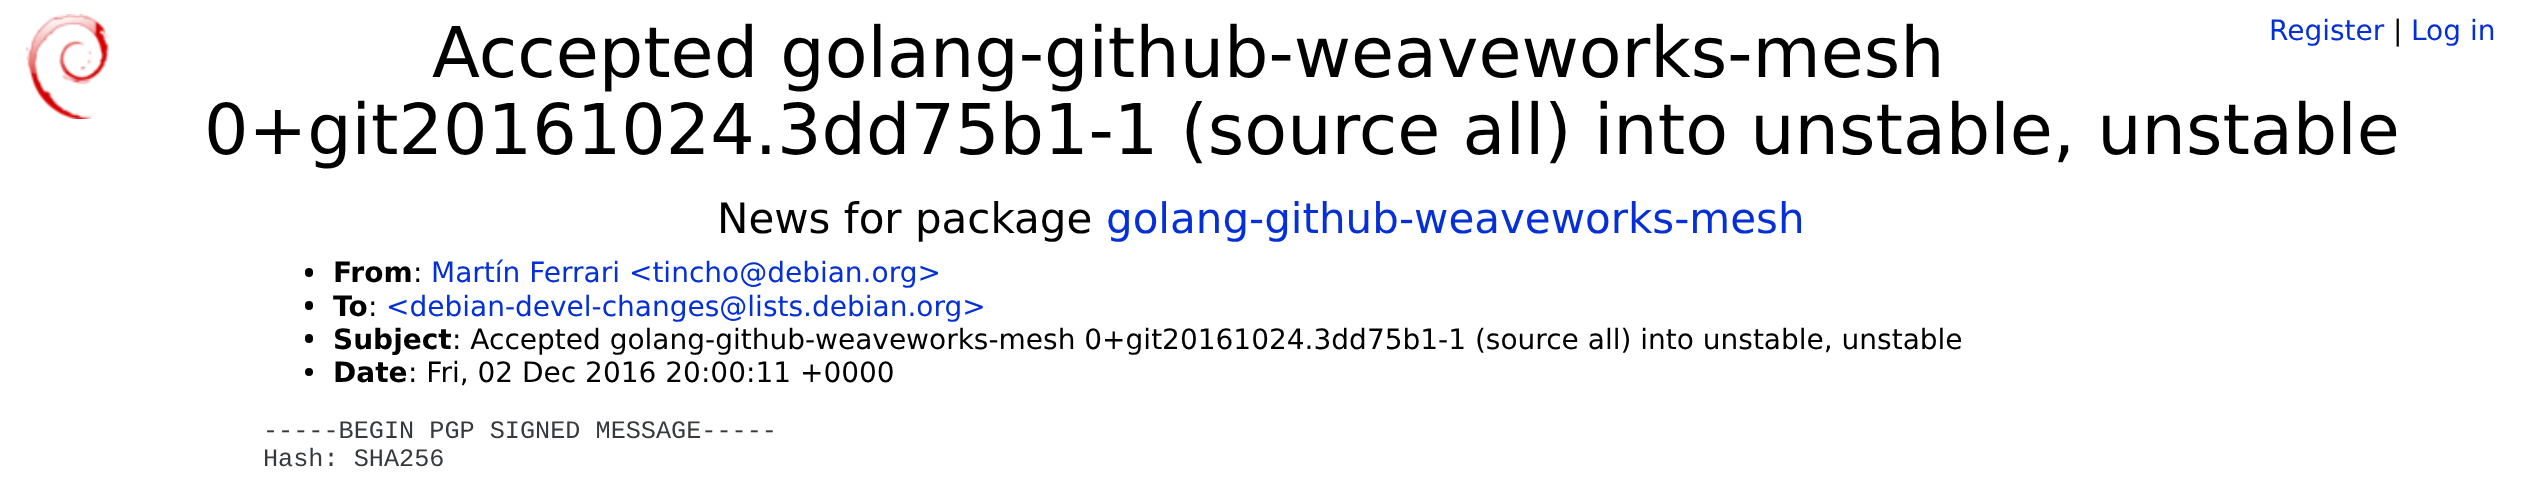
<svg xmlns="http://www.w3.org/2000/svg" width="2521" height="489">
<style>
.a{font:28px DejaVu Sans;fill:#0530d7}
.b{font:28px DejaVu Sans;fill:#000}
.c{font:70px DejaVu Sans;fill:#000}
.d{font:42px DejaVu Sans;fill:#000}
.e{font:42px DejaVu Sans;fill:#0530d7}
.f{font:bold 28px DejaVu Sans;fill:#000}
.g{font:25.2px Liberation Mono;fill:#373a3c}
</style>
<rect width="100%" height="100%" fill="#fff"/>
<image href="1.png" x="26" y="14" width="83" height="105"/>
<rect fill="#000" x="305" y="268" width="8" height="9" rx="4"/>
<rect fill="#000" x="305" y="301" width="8" height="9" rx="4"/>
<rect fill="#000" x="305" y="334" width="8" height="9" rx="4"/>
<circle fill="#000" cx="309" cy="372" r="4"/>
<text class="a" x="2269" y="40">Register</text>
<text class="b" x="2393" y="40">|</text>
<text class="a" x="2411" y="40">Log in</text>
<text class="c" x="432" y="77">Accepted golang-github-weaveworks-mesh</text>
<text class="c" x="204" y="154">0+git20161024.3dd75b1-1 (source all) into unstable, unstable</text>
<text class="d" x="717" y="233">News for package</text>
<text class="e" x="1106" y="233">golang-github-weaveworks-mesh</text>
<text class="f" x="333" y="282">From</text>
<text class="b" x="413" y="282">:</text>
<text class="a" x="431" y="282">Martín Ferrari &lt;tincho@debian.org&gt;</text>
<text class="f" x="333" y="316">To</text>
<text class="b" x="368" y="316">:</text>
<text class="a" x="386" y="316">&lt;debian-devel-changes@lists.debian.org&gt;</text>
<text class="f" x="333" y="349">Subject</text>
<text class="b" x="452" y="349">: Accepted golang-github-weaveworks-mesh 0+git20161024.3dd75b1-1 (source all) into unstable, unstable</text>
<text class="f" x="333" y="382">Date</text>
<text class="b" x="408" y="382">: Fri, 02 Dec 2016 20:00:11 +0000</text>
<text class="g" x="263" y="438">-----BEGIN PGP SIGNED MESSAGE-----</text>
<text class="g" x="263" y="466">Hash: SHA256</text>
</svg>
